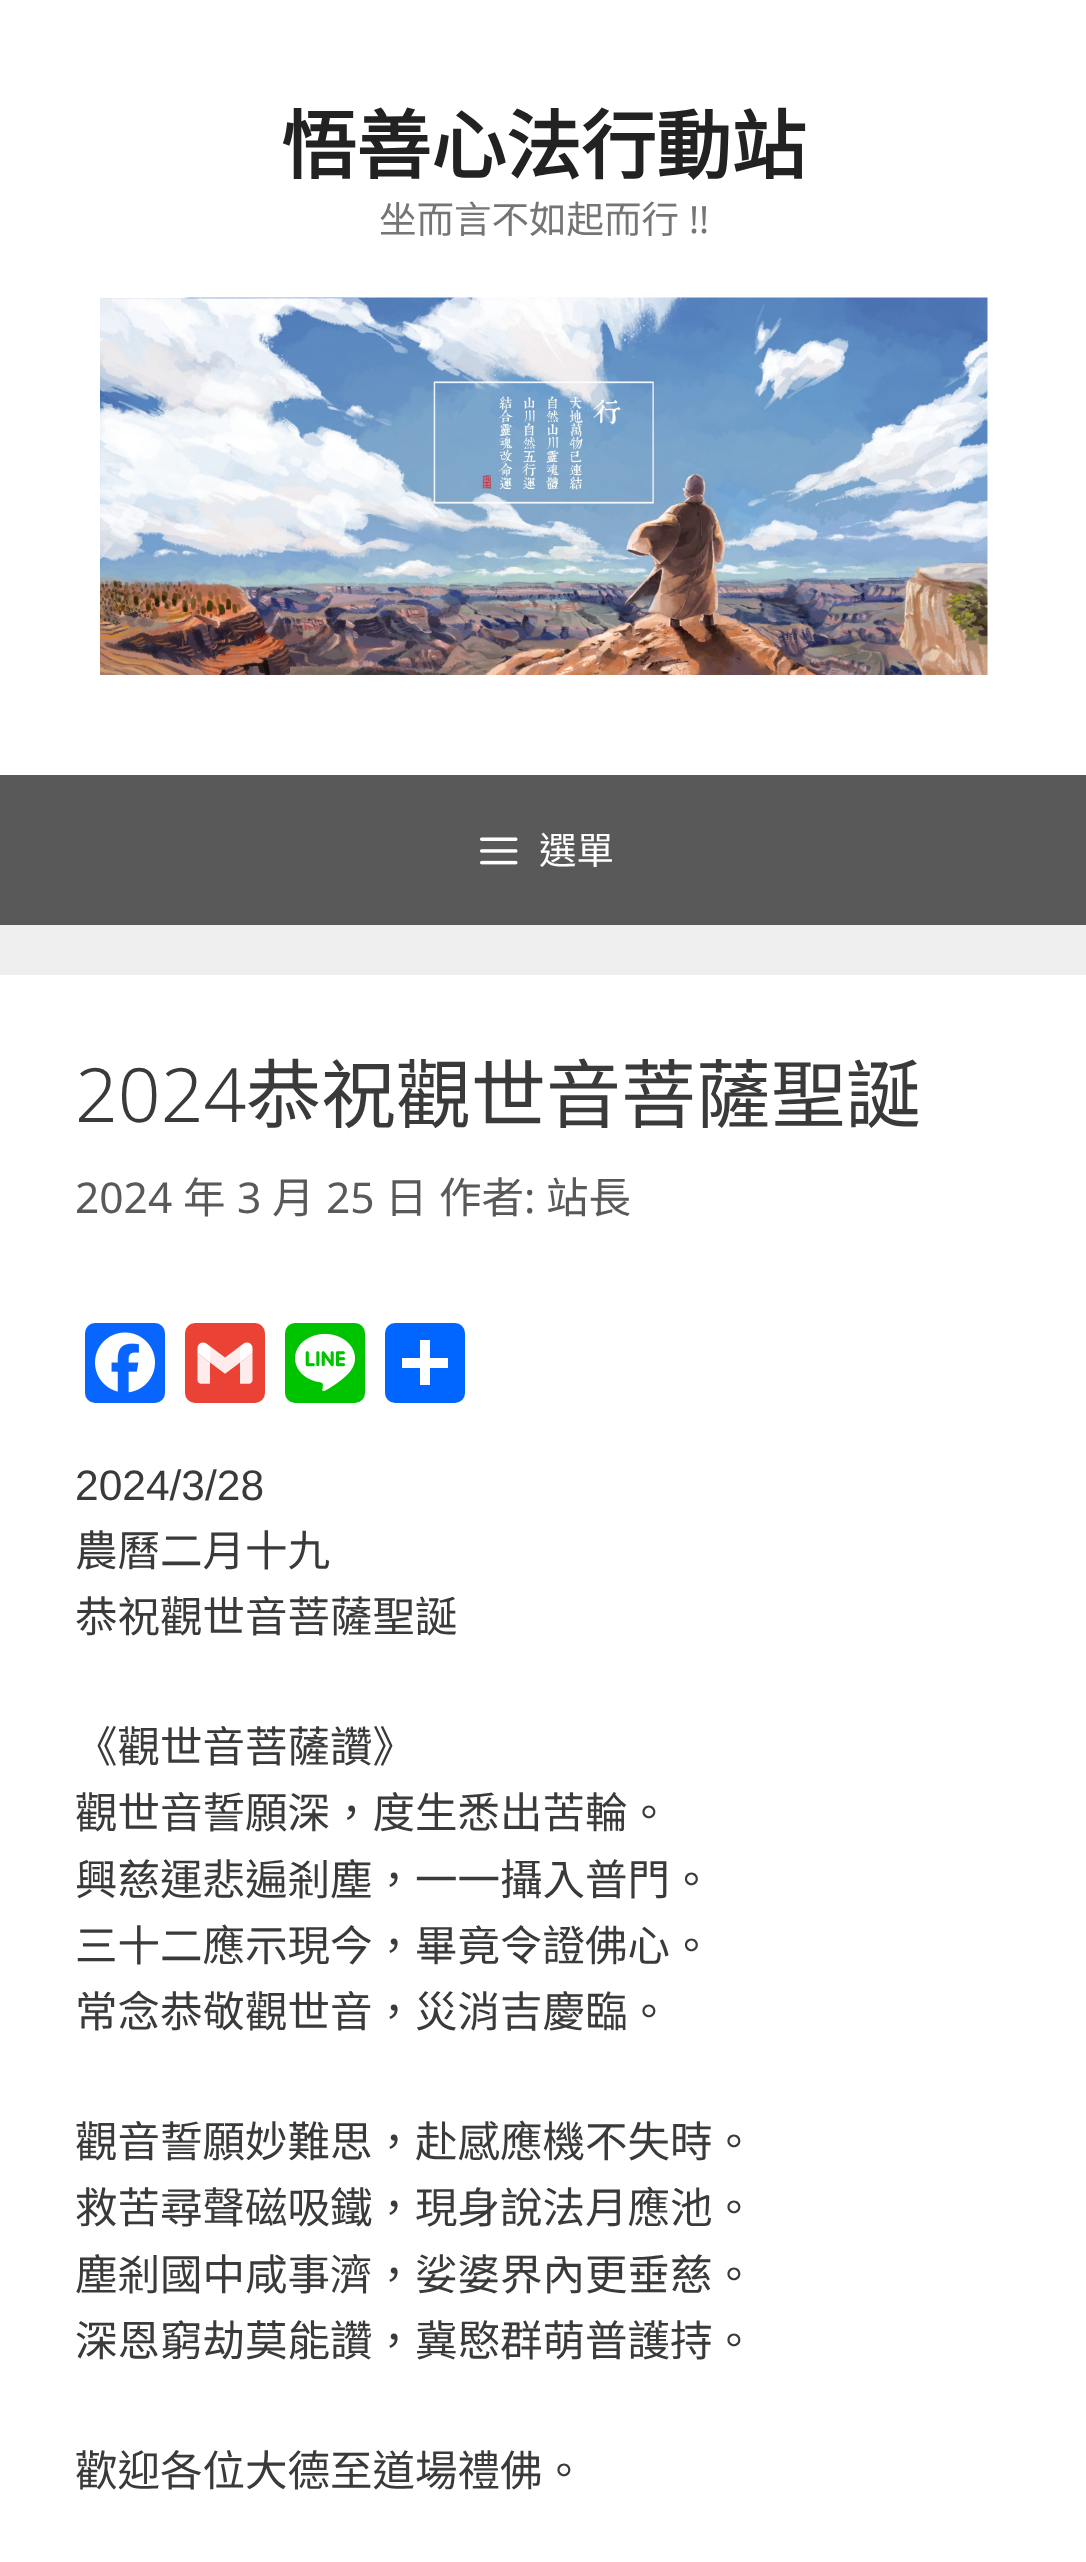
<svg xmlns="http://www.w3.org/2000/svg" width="1086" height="2562">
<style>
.a{font:bold 75px Noto Sans CJK TC;fill:#222}
.b{font:37.5px Noto Sans CJK TC;fill:#757575}
.c{font:37.5px Noto Sans;fill:#757575}
.d{font:37.5px Noto Sans CJK TC;fill:#fff}
.e{font:300 75px Noto Sans;fill:#3a3a3a}
.f{font:75px Noto Sans CJK TC;fill:#3a3a3a}
.g{font:42.5px Noto Sans;fill:#595959}
.h{font:42.5px Noto Sans CJK TC;fill:#595959}
.i{font:42.5px Liberation Sans;fill:#3a3a3a}
.j{font:42.5px Noto Sans CJK TC;fill:#3a3a3a}
</style>
<rect width="100%" height="100%" fill="#efefef"/>
<path fill="#fff" d="M0 0h1086v775H0z"/>
<image href="1.png" x="100" y="297" width="888" height="378"/>
<path fill="#595959" d="M0 775h1086v150H0z"/>
<image href="2.png" x="480" y="837" width="38" height="28"/>
<path fill="#fff" d="M0 975h1086v1587H0z"/>
<rect fill="#0866ff" x="85" y="1323" width="80" height="80" rx="10"/>
<image href="3.png" x="95" y="1332" width="60" height="61"/>
<rect fill="#ea4335" x="185" y="1323" width="80" height="80" rx="10"/>
<image href="4.png" x="197" y="1342" width="56" height="42"/>
<rect fill="#00c300" x="285" y="1323" width="80" height="80" rx="10"/>
<image href="5.png" x="295" y="1333" width="60" height="59"/>
<rect fill="#0166ff" x="385" y="1323" width="80" height="80" rx="10"/>
<path fill="#fff" d="M420 1340h10v45H420z"/>
<path fill="#fff" d="M402 1358h46v10H402z"/>
<text class="a" x="281" y="173">悟善心法行動站</text>
<text class="b" x="379" y="233">坐而言不如起而行</text>
<text class="c" x="689" y="233">!!</text>
<text class="d" x="539" y="864">選單</text>
<text class="e" x="75" y="1122">2024</text>
<text class="f" x="246" y="1122">恭祝觀世音菩薩聖誕</text>
<text class="g" x="75" y="1213">2024</text>
<text class="h" x="183" y="1213">年</text>
<text class="g" x="237" y="1213">3</text>
<text class="h" x="272" y="1213">月</text>
<text class="g" x="326" y="1213">25</text>
<text class="h" x="385" y="1213">日</text>
<text class="h" x="439" y="1213">作者</text>
<text class="g" x="524" y="1213">:</text>
<text class="h" x="546" y="1213">站長</text>
<text class="i" x="75" y="1500">2024/3/28</text>
<text class="j" x="75" y="1566">農曆二月十九</text>
<text class="j" x="75" y="1632">恭祝觀世音菩薩聖誕</text>
<text class="j" x="75" y="1762">《觀世音菩薩讚》</text>
<text class="j" x="75" y="1828">觀世音誓願深，度生悉出苦輪。</text>
<text class="j" x="75" y="1895">興慈運悲遍剎塵，一一攝入普門。</text>
<text class="j" x="75" y="1961">三十二應示現今，畢竟令證佛心。</text>
<text class="j" x="75" y="2027">常念恭敬觀世音，災消吉慶臨。</text>
<text class="j" x="75" y="2157">觀音誓願妙難思，赴感應機不失時。</text>
<text class="j" x="75" y="2223">救苦尋聲磁吸鐵，現身說法月應池。</text>
<text class="j" x="75" y="2290">塵剎國中咸事濟，娑婆界內更垂慈。</text>
<text class="j" x="75" y="2356">深恩窮劫莫能讚，冀愍群萌普護持。</text>
<text class="j" x="75" y="2486">歡迎各位大德至道場禮佛。</text>
</svg>
